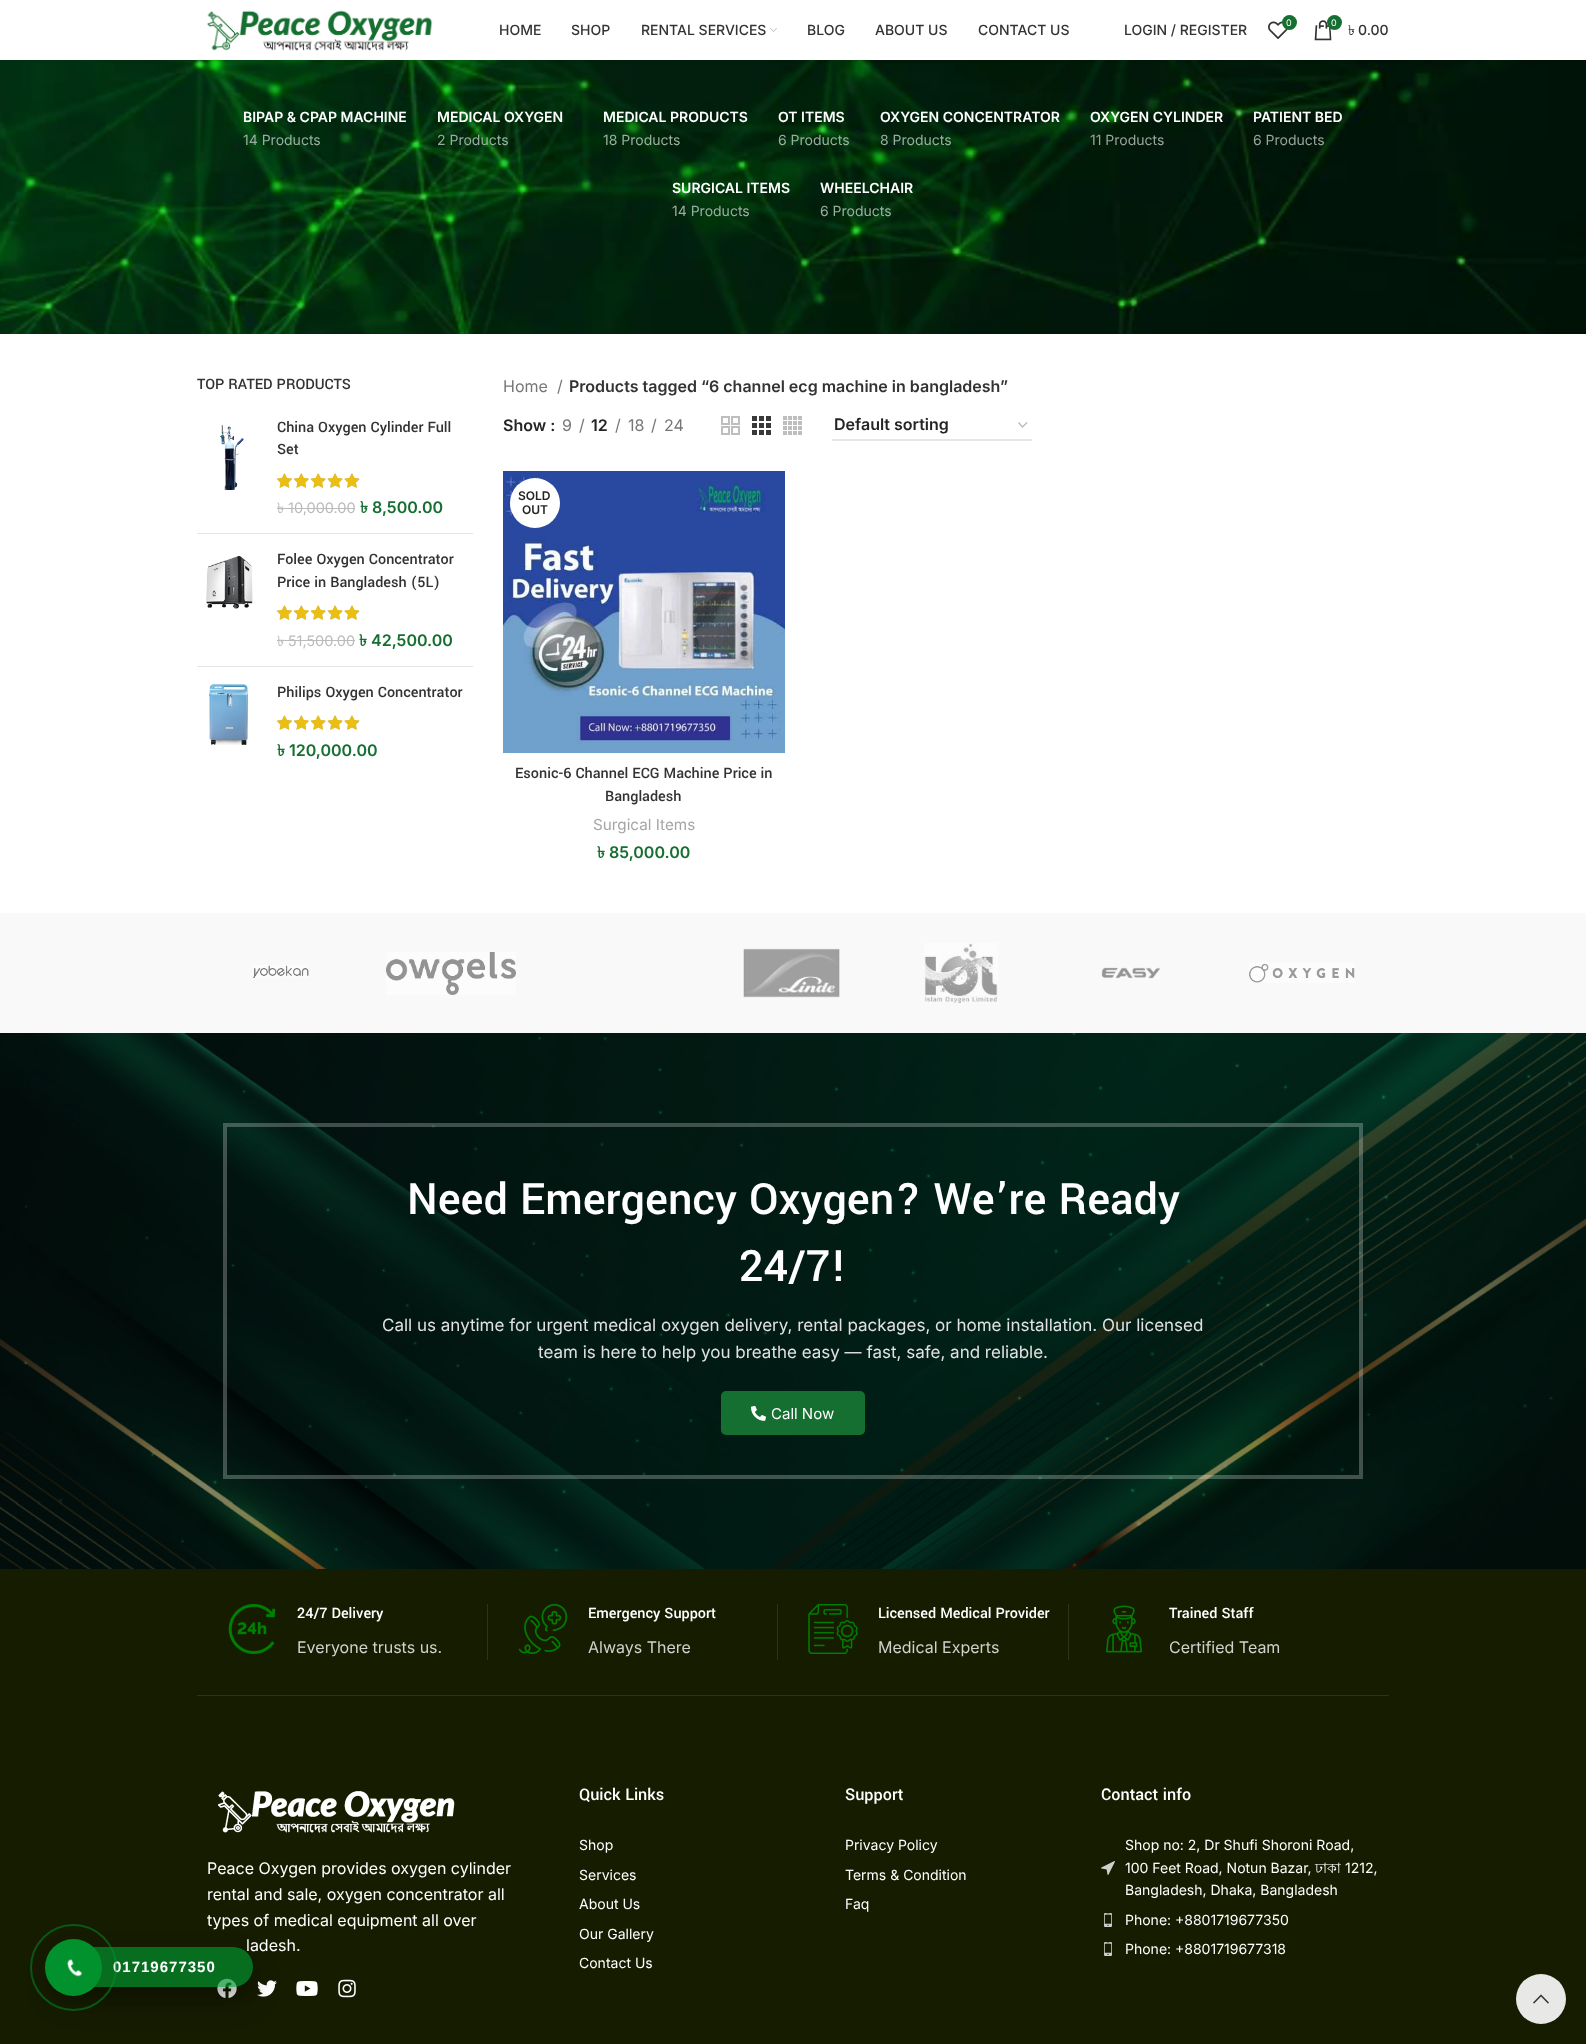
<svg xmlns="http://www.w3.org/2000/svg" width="1586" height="2044">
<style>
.a{font:500 14px Inter;fill:#333}
.b{font:9px Inter;fill:#fff}
.c{font:14px Lohit Bengali;fill:#333}
.d{font:600 14px Inter;fill:#fff}
.e{font:14px Inter;fill:#9aaea0}
.f{font:14px Inter;fill:#9aa39c}
.g{font:500 16px Yantramanav;fill:#333}
.h{font:14.5px Lohit Bengali;fill:#bbb}
.i{font:14.5px Inter;fill:#bbb}
.j{font:bold 16px Lohit Bengali;fill:#156f30}
.k{font:600 16px Inter;fill:#156f30}
.l{font:16px Inter;fill:#777}
.m{font:600 16px Inter;fill:#333}
.n{font:600 16px Inter;fill:#242424}
.o{font:600 12px Inter;fill:#242424}
.p{font:15.25px Inter;fill:#a5a5a5}
.q{font:500 48px Yantramanav;fill:#fff}
.r{font:17px Inter;fill:#e2e2e2}
.s{font:15px Inter;fill:#fff}
.t{font:500 16px Yantramanav;fill:#fff}
.u{font:16px Inter;fill:#d0d2cc}
.v{font:16px Inter;fill:#fff}
.w{font:bold 15px Liberation Sans;letter-spacing:1px;fill:#fff}
.x{font:500 18px Yantramanav;fill:#fff}
.y{font:14px Inter;fill:#fff}
.z{font:14px Lohit Bengali;fill:#fff}
</style>
<defs>
<clipPath id="clip1"><path d="M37 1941h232v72h-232zm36 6h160c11 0 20 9 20 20c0 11-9 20-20 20h-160c-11 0-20-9-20-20c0-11 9-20 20-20z" clip-rule="evenodd"/></clipPath>
<clipPath id="clip2"><path d="M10 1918h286v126h-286zm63 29h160c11 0 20 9 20 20c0 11-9 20-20 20h-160c-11 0-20-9-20-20c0-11 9-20 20-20z" clip-rule="evenodd"/></clipPath>
</defs>
<rect width="100%" height="100%" fill="#fff"/>
<path fill="#161c00" d="M0 1569h1586v475H0z"/>
<image href="29.png" x="217" y="1978" width="20" height="20"/>
<image href="30.png" x="257" y="1980" width="20" height="17"/>
<g clip-path="url(#clip1)">
<rect fill="#0000001a" filter="blur(5px)" x="53" y="1957" width="200" height="40" rx="20"/>
</g>
<g clip-path="url(#clip2)">
<rect fill="#00000040" filter="blur(14px)" x="53" y="1961" width="200" height="40" rx="20"/>
</g>
<image href="6.png" x="0" y="60" width="1586" height="274"/>
<path fill="#0000001a" filter="blur(1.5px)" d="M0 1h1586v60H0z"/>
<path fill="#fff" d="M0 0h1586v60H0z"/>
<image href="2.png" x="207" y="10" width="226" height="41"/>
<image href="3.png" x="770" y="28" width="7" height="4"/>
<image href="4.png" x="1268" y="21" width="20" height="18"/>
<circle fill="#156f30" cx="1289.5" cy="22.5" r="7.5"/>
<image href="5.png" x="1314" y="20" width="18" height="21"/>
<circle fill="#156f30" cx="1334.5" cy="22.5" r="7.5"/>
<path fill="#e4e4e4" d="M197 533h276v1H197z"/>
<image href="7.png" x="219" y="425" width="25" height="65"/>
<image href="8.png" x="277" y="473" width="83" height="15"/>
<image href="9.png" x="277" y="473" width="83" height="15"/>
<path fill="#bbb" d="M277 508h11v1H277z"/>
<path fill="#bbb" d="M288 508h67v1H288z"/>
<path fill="#e4e4e4" d="M197 666h276v1H197z"/>
<image href="10.png" x="206" y="555" width="47" height="54"/>
<image href="8.png" x="277" y="605" width="83" height="15"/>
<image href="9.png" x="277" y="605" width="83" height="15"/>
<path fill="#bbb" d="M277 640h11v1H277z"/>
<path fill="#bbb" d="M288 640h67v1H288z"/>
<image href="11.png" x="208" y="683" width="41" height="62"/>
<image href="8.png" x="277" y="715" width="83" height="15"/>
<image href="9.png" x="277" y="715" width="83" height="15"/>
<image href="12.png" x="721" y="416" width="19" height="19"/>
<image href="13.png" x="752" y="416" width="19" height="19"/>
<image href="14.png" x="783" y="416" width="19" height="19"/>
<path fill="none" stroke="#bbb" stroke-width="1.4" d="M1018.5 422.5l4 4.5l4.5-4.5"/>
<path fill="#e6e6e6" d="M832 439h200v2H832z"/>
<image href="15.png" x="503" y="471" width="282" height="282"/>
<circle fill="#fff" cx="535" cy="503" r="25"/>
<path fill="#f9f9f9" d="M0 913h1586v120H0z"/>
<image href="16.png" x="253" y="965" width="56" height="13"/>
<image href="17.png" x="386" y="952" width="130" height="43"/>
<image href="18.png" x="743" y="948" width="97" height="50"/>
<image href="19.png" x="924" y="943" width="74" height="60"/>
<image href="20.png" x="1101" y="967" width="59" height="12"/>
<image href="21.png" x="1249" y="963" width="106" height="20"/>
<image href="22.png" x="0" y="1033" width="1586" height="536"/>
<path fill="none" stroke="#ffffff40" stroke-width="4" d="M225 1125h1136v352H225z"/>
<rect fill="#156f30" x="721" y="1391" width="144" height="44" rx="5"/>
<image href="23.png" x="751" y="1405" width="15" height="16"/>
<path fill="#2d331a" d="M197 1695h1192v1H197z"/>
<path fill="#2d331a" d="M487 1604h1v56H487z"/>
<image href="24.png" x="228" y="1604" width="48" height="50"/>
<path fill="#2d331a" d="M777 1604h1v56H777z"/>
<image href="25.png" x="518" y="1604" width="50" height="50"/>
<path fill="#2d331a" d="M1068 1604h1v56H1068z"/>
<image href="26.png" x="808" y="1604" width="50" height="50"/>
<image href="27.png" x="1106" y="1605" width="36" height="48"/>
<image href="28.png" x="218" y="1791" width="237" height="42"/>
<image href="31.png" x="296" y="1981" width="22" height="15"/>
<image href="32.png" x="338" y="1979" width="18" height="19"/>
<image href="33.png" x="1101" y="1861" width="14" height="14"/>
<image href="34.png" x="1104" y="1913" width="8" height="14"/>
<image href="34.png" x="1104" y="1942" width="8" height="14"/>
<circle fill="#e8e8e6" cx="1541" cy="1999" r="25"/>
<image href="35.png" x="1533" y="1994" width="16" height="10"/>
<text class="a" x="499" y="35">HOME</text>
<text class="a" x="571" y="35">SHOP</text>
<text class="a" x="641" y="35">RENTAL SERVICES</text>
<text class="a" x="807" y="35">BLOG</text>
<text class="a" x="875" y="35">ABOUT US</text>
<text class="a" x="978" y="35">CONTACT US</text>
<text class="a" x="1124" y="35">LOGIN / REGISTER</text>
<text class="b" x="1286" y="26">0</text>
<text class="b" x="1331" y="26">0</text>
<text class="c" x="1348" y="35">৳</text>
<text class="a" x="1358" y="35">0.00</text>
<text class="d" x="243" y="122">BIPAP &amp; CPAP MACHINE</text>
<text class="e" x="243" y="145">14 Products</text>
<text class="d" x="437" y="122">MEDICAL OXYGEN</text>
<text class="e" x="437" y="145">2 Products</text>
<text class="d" x="603" y="122">MEDICAL PRODUCTS</text>
<text class="e" x="603" y="145">18 Products</text>
<text class="d" x="778" y="122">OT ITEMS</text>
<text class="e" x="778" y="145">6 Products</text>
<text class="d" x="880" y="122">OXYGEN CONCENTRATOR</text>
<text class="e" x="880" y="145">8 Products</text>
<text class="d" x="1090" y="122">OXYGEN CYLINDER</text>
<text class="f" x="1090" y="145">11 Products</text>
<text class="d" x="1253" y="122">PATIENT BED</text>
<text class="f" x="1253" y="145">6 Products</text>
<text class="d" x="672" y="193">SURGICAL ITEMS</text>
<text class="e" x="672" y="216">14 Products</text>
<text class="d" x="820" y="193">WHEELCHAIR</text>
<text class="e" x="820" y="216">6 Products</text>
<text class="g" x="197" y="389">TOP RATED PRODUCTS</text>
<text class="g" x="277" y="432">China Oxygen Cylinder Full</text>
<text class="g" x="277" y="454">Set</text>
<text class="h" x="277" y="513">৳</text>
<text class="i" x="288" y="513">10,000.00</text>
<text class="j" x="360" y="513">৳</text>
<text class="k" x="372" y="513">8,500.00</text>
<text class="g" x="277" y="564">Folee Oxygen Concentrator</text>
<text class="g" x="277" y="587">Price in Bangladesh (5L)</text>
<text class="h" x="277" y="646">৳</text>
<text class="i" x="288" y="646">51,500.00</text>
<text class="j" x="359" y="646">৳</text>
<text class="k" x="371" y="646">42,500.00</text>
<text class="g" x="277" y="697">Philips Oxygen Concentrator</text>
<text class="j" x="277" y="756">৳</text>
<text class="k" x="289" y="756">120,000.00</text>
<text class="l" x="503" y="392">Home</text>
<text class="l" x="557" y="392">/</text>
<text class="m" x="569" y="392">Products tagged “6 channel ecg machine in bangladesh”</text>
<text class="n" x="503" y="431">Show :</text>
<text class="l" x="562" y="431">9</text>
<text class="l" x="579" y="431">/</text>
<text class="n" x="591" y="431">12</text>
<text class="l" x="615" y="431">/</text>
<text class="l" x="628" y="431">18</text>
<text class="l" x="651" y="431">/</text>
<text class="l" x="664" y="431">24</text>
<text class="n" x="834" y="430">Default sorting</text>
<text class="o" x="518" y="500">SOLD</text>
<text class="o" x="522" y="514">OUT</text>
<text class="g" x="515" y="778">Esonic-6 Channel ECG Machine Price in</text>
<text class="g" x="605" y="801">Bangladesh</text>
<text class="p" x="593" y="830">Surgical Items</text>
<text class="j" x="597" y="858">৳</text>
<text class="k" x="609" y="858">85,000.00</text>
<text class="q" x="407" y="1214">Need Emergency Oxygen? We’re Ready</text>
<text class="q" x="739" y="1281">24/7!</text>
<text class="r" x="382" y="1331">Call us anytime for urgent medical oxygen delivery, rental packages, or home installation. Our licensed</text>
<text class="r" x="538" y="1358">team is here to help you breathe easy — fast, safe, and reliable.</text>
<text class="s" x="771" y="1419">Call Now</text>
<text class="t" x="297" y="1618">24/7 Delivery</text>
<text class="u" x="297" y="1653">Everyone trusts us.</text>
<text class="t" x="588" y="1618">Emergency Support</text>
<text class="u" x="588" y="1653">Always There</text>
<text class="t" x="878" y="1618">Licensed Medical Provider</text>
<text class="u" x="878" y="1653">Medical Experts</text>
<text class="t" x="1169" y="1618">Trained Staff</text>
<text class="u" x="1169" y="1653">Certified Team</text>
<text class="v" x="207" y="1874">Peace Oxygen provides oxygen cylinder</text>
<text class="v" x="207" y="1900">rental and sale, oxygen concentrator all</text>
<text class="v" x="207" y="1926">types of medical equipment all over</text>
<text class="v" x="246" y="1951">ladesh.</text>
<rect fill="#02922db3" x="53" y="1947" width="200" height="40" rx="20"/>
<text class="w" x="113" y="1972">01719677350</text>
<circle fill="none" stroke="#02922d80" stroke-width="2" cx="73.5" cy="1967.5" r="42.5"/>
<circle fill="#02922d" cx="73.5" cy="1967.5" r="28.5"/>
<image href="1.png" x="67" y="1959" width="16" height="18"/>
<text class="x" x="579" y="1800">Quick Links</text>
<text class="y" x="579" y="1850">Shop</text>
<text class="y" x="579" y="1880">Services</text>
<text class="y" x="579" y="1909">About Us</text>
<text class="y" x="579" y="1939">Our Gallery</text>
<text class="y" x="579" y="1968">Contact Us</text>
<text class="x" x="845" y="1800">Support</text>
<text class="y" x="845" y="1850">Privacy Policy</text>
<text class="y" x="845" y="1880">Terms &amp; Condition</text>
<text class="y" x="845" y="1909">Faq</text>
<text class="x" x="1101" y="1800">Contact info</text>
<text class="y" x="1125" y="1850">Shop no: 2, Dr Shufi Shoroni Road,</text>
<text class="y" x="1125" y="1873">100 Feet Road, Notun Bazar,</text>
<text class="z" x="1315" y="1873">ঢাকা</text>
<text class="y" x="1345" y="1873">1212,</text>
<text class="y" x="1125" y="1895">Bangladesh, Dhaka, Bangladesh</text>
<text class="y" x="1125" y="1925">Phone: +8801719677350</text>
<text class="y" x="1125" y="1954">Phone: +8801719677318</text>
</svg>
